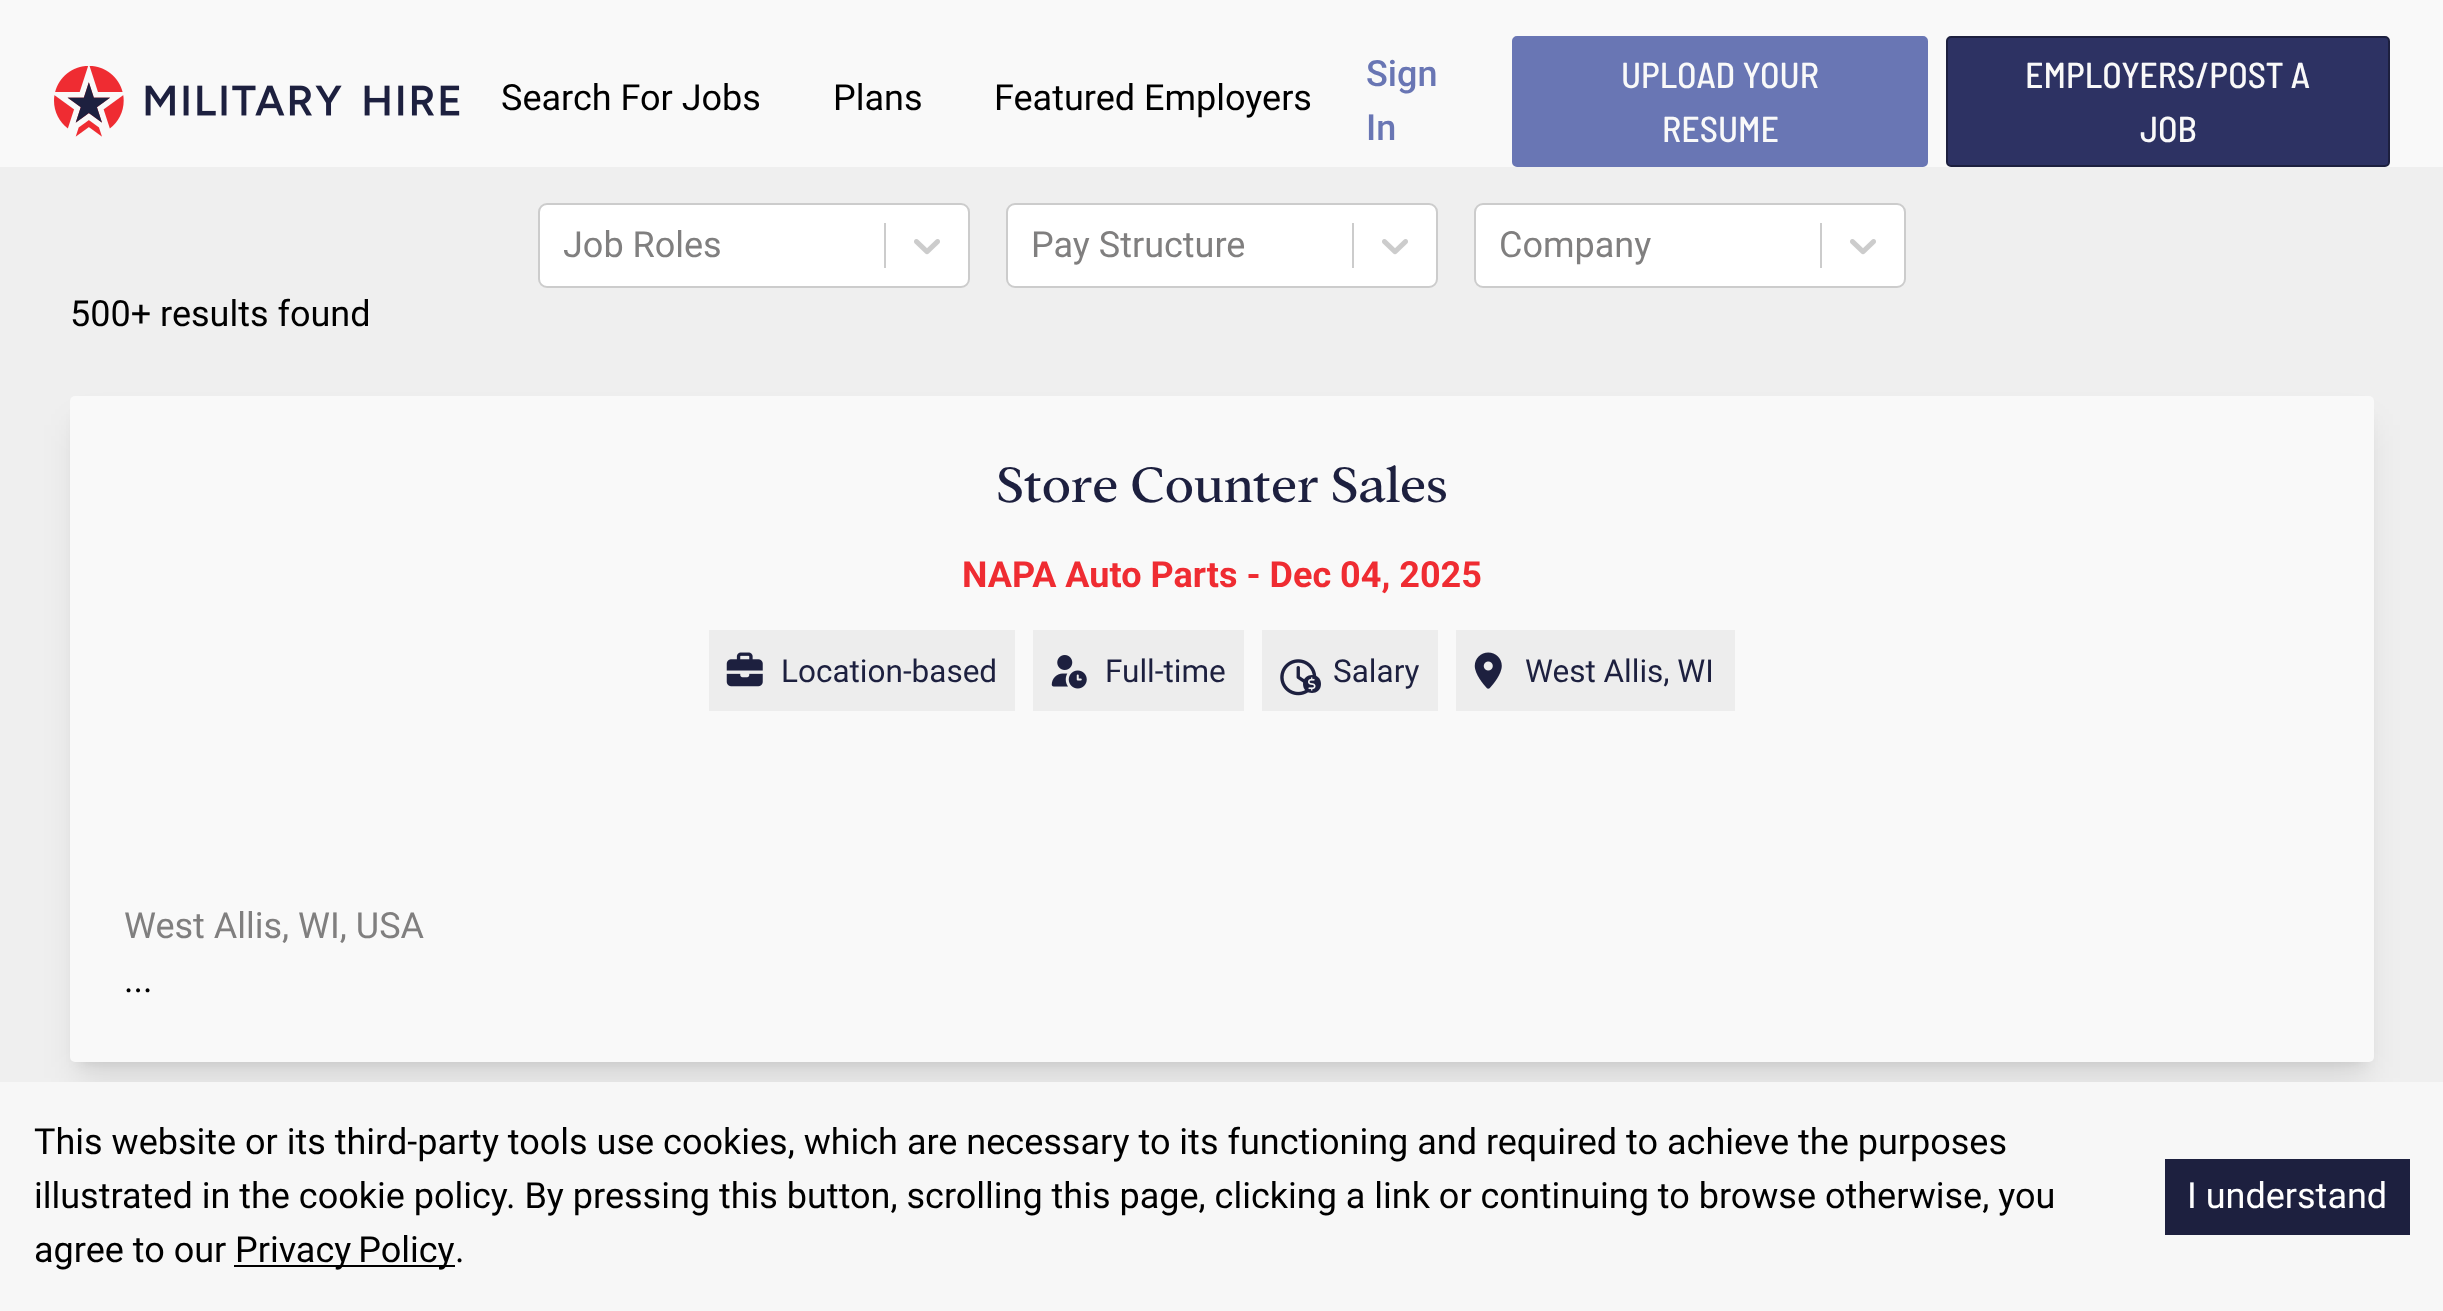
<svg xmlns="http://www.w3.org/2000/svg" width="2443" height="1311">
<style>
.a{font:36px Roboto;fill:#000}
.b{font:500 36px Roboto;fill:#6976b4}
.c{font:500 36px Barlow Semi Condensed;fill:#f9f9f9}
.d{font:36px Roboto;fill:#807f7f}
.e{font:54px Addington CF;fill:#1d203f}
.f{font:bold 36px Roboto;fill:#ef2c32}
.g{font:31.5px Roboto;fill:#1d203f}
.h{font:36px Roboto;fill:#fff}
</style>
<rect width="100%" height="100%" fill="#efefef"/>
<path fill="#f9f9f9" d="M0 0h2443v167H0z"/>
<image href="1.png" x="54" y="66" width="406" height="71"/>
<rect fill="#6976b4" stroke="#6976b4" stroke-width="2" x="1513" y="37" width="414" height="129" rx="4"/>
<rect fill="#2d3263" stroke="#1d203f" stroke-width="2" x="1947" y="37" width="442" height="129" rx="4"/>
<rect fill="#fff" stroke="#ccc" stroke-width="2" x="539" y="204" width="430" height="83" rx="8"/>
<path fill="#ccc" d="M884 223h2v45H884z"/>
<image href="2.png" x="914" y="239" width="26" height="16"/>
<rect fill="#fff" stroke="#ccc" stroke-width="2" x="1007" y="204" width="430" height="83" rx="8"/>
<path fill="#ccc" d="M1352 223h2v45H1352z"/>
<image href="2.png" x="1382" y="239" width="26" height="16"/>
<rect fill="#fff" stroke="#ccc" stroke-width="2" x="1475" y="204" width="430" height="83" rx="8"/>
<path fill="#ccc" d="M1820 223h2v45H1820z"/>
<image href="2.png" x="1850" y="239" width="26" height="16"/>
<path fill="#0000001a" filter="blur(7px)" d="M79 414h2286v648H79z"/>
<path fill="#0000001a" filter="blur(17px)" d="M77 425h2290v653H77z"/>
<rect fill="#f9f9f9" x="70" y="396" width="2304" height="666" rx="5"/>
<path fill="#ededed" d="M709 630h306v81H709z"/>
<image href="3.png" x="726" y="652" width="37" height="35"/>
<path fill="#ededed" d="M1033 630h211v81H1033z"/>
<image href="4.png" x="1051" y="655" width="36" height="34"/>
<path fill="#ededed" d="M1262 630h176v81H1262z"/>
<image href="5.png" x="1280" y="659" width="37" height="37"/>
<path fill="#1d203f" d="M1303 684c0-12 18-12 18 0c0 12-18 12-18 0z"/>
<image href="6.png" x="1308" y="677" width="8" height="14"/>
<path fill="#ededed" d="M1456 630h279v81H1456z"/>
<image href="7.png" x="1474" y="652" width="28" height="37"/>
<path fill="#f7f7f7" d="M0 1082h2443v229H0z"/>
<path fill="#000" d="M234 1265h221v2H234z"/>
<path fill="#1d203f" d="M2165 1159h245v76H2165z"/>
<text class="a" x="501" y="110">Search For Jobs</text>
<text class="a" x="833" y="110">Plans</text>
<text class="a" x="994" y="110">Featured Employers</text>
<text class="b" x="1366" y="86">Sign</text>
<text class="b" x="1366" y="140">In</text>
<text class="c" x="1621" y="88">UPLOAD YOUR</text>
<text class="c" x="1662" y="142">RESUME</text>
<text class="c" x="2025" y="88">EMPLOYERS/POST A</text>
<text class="c" x="2140" y="142">JOB</text>
<text class="d" x="563" y="257">Job Roles</text>
<text class="d" x="1031" y="257">Pay Structure</text>
<text class="d" x="1499" y="257">Company</text>
<text class="a" x="70" y="326">500+ results found</text>
<text class="e" x="996" y="502">Store Counter Sales</text>
<text class="f" x="962" y="587">NAPA Auto Parts - Dec 04, 2025</text>
<text class="g" x="781" y="682">Location-based</text>
<text class="g" x="1105" y="682">Full-time</text>
<text class="g" x="1333" y="682">Salary</text>
<text class="g" x="1525" y="682">West Allis, WI</text>
<text class="d" x="124" y="938">West Allis, WI, USA</text>
<text class="a" x="124" y="992">...</text>
<text class="a" x="34" y="1154">This website or its third-party tools use cookies, which are necessary to its functioning and required to achieve the purposes</text>
<text class="a" x="34" y="1208">illustrated in the cookie policy. By pressing this button, scrolling this page, clicking a link or continuing to browse otherwise, you</text>
<text class="a" x="34" y="1262">agree to our</text>
<text class="a" x="235" y="1262" word-spacing="-2">Privacy Policy</text>
<text class="a" x="455" y="1262">.</text>
<text class="h" x="2187" y="1208">I understand</text>
</svg>
